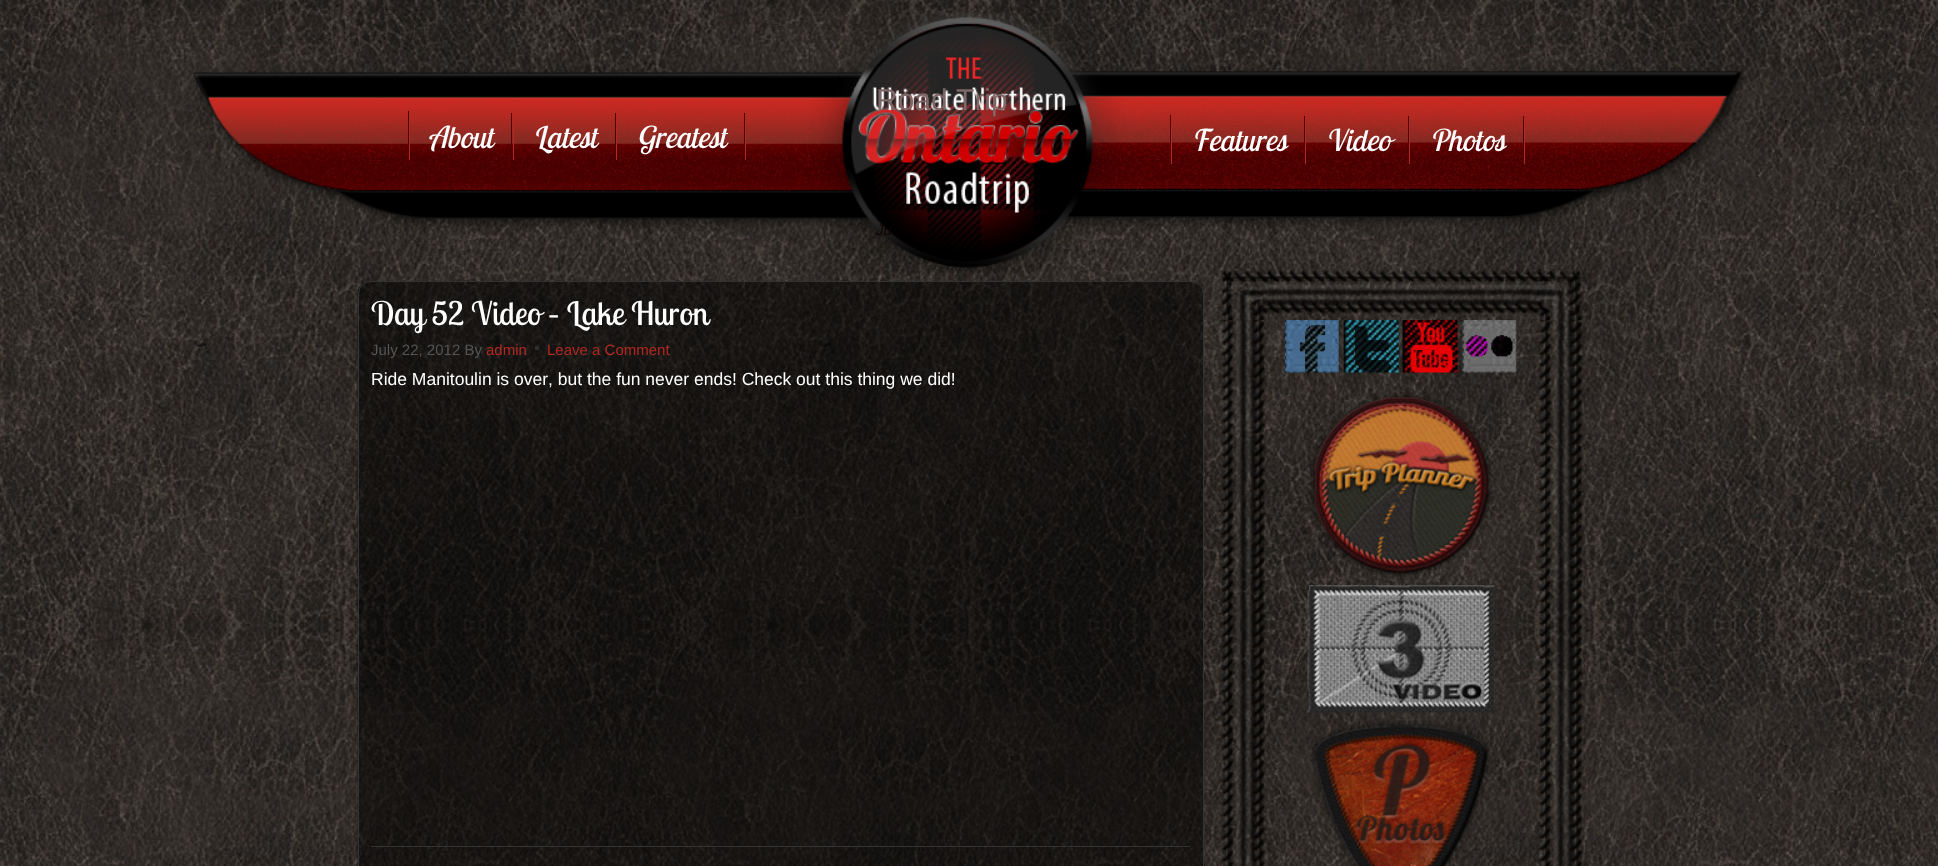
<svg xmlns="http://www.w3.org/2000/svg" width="1938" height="866">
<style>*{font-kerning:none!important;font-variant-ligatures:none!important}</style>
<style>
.a{font:italic 30px Lobster Two;fill:#fff}
.b{font:30px Liberation Sans;fill:#7d6767}
.c{font:italic 15px Liberation Sans;fill:#0f0303}
.d{font:32.5px Lobster Two;fill:#fff}
.e{font:15px Liberation Sans;fill:#555}
.f{font:15px Liberation Sans;fill:#b22922}
.g{font:17.5px Liberation Sans;fill:#fff}
</style>
<rect width="100%" height="100%" fill="#fff"/>
<image href="1.png" x="0" y="0" width="1938" height="866"/>
<image href="2.png" x="193" y="12" width="1553" height="261"/>
<path fill="#b22922" d="M745 111h1v49H745z"/>
<path fill="#4f0001" d="M408 111h1v49H408z"/>
<path fill="#4f0001" d="M511 113h1v47H511z"/>
<path fill="#b22922" d="M409 113h1v47H409z"/>
<path fill="#4f0001" d="M615 113h1v47H615z"/>
<path fill="#b22922" d="M513 113h1v47H513z"/>
<path fill="#4f0001" d="M744 113h1v47H744z"/>
<path fill="#b22922" d="M616 113h1v47H616z"/>
<path fill="#b22922" d="M1524 115h1v49H1524z"/>
<path fill="#4f0001" d="M1170 115h1v49H1170z"/>
<path fill="#4f0001" d="M1304 116h1v48H1304z"/>
<path fill="#b22922" d="M1171 116h1v48H1171z"/>
<path fill="#4f0001" d="M1408 116h1v48H1408z"/>
<path fill="#b22922" d="M1305 116h1v48H1305z"/>
<path fill="#4f0001" d="M1523 116h1v48H1523z"/>
<path fill="#b22922" d="M1409 116h1v48H1409z"/>
<image href="3.png" x="357" y="281" width="847" height="585"/>
<rect fill="none" stroke="#333" x="358.5" y="281.5" width="845" height="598" rx="12.5"/>
<image href="4.png" x="535" y="346" width="4" height="5"/>
<path fill="#333" d="M371 846h819v1H371z"/>
<image href="5.png" x="1221" y="320" width="362" height="546"/>
<image href="6.png" x="1222" y="268" width="363" height="52"/>
<image href="7.png" x="1285" y="320" width="54" height="53"/>
<image href="8.png" x="1343" y="320" width="56" height="53"/>
<image href="9.png" x="1402" y="320" width="56" height="53"/>
<image href="10.png" x="1462" y="320" width="55" height="53"/>
<image href="11.png" x="1310" y="392" width="183" height="185"/>
<image href="12.png" x="1307" y="585" width="188" height="128"/>
<image href="13.png" x="1311" y="720" width="181" height="146"/>
<text class="a" x="428" y="148">About</text>
<text class="a" x="532" y="148">Latest</text>
<text class="a" x="636" y="148">Greatest</text>
<text class="b" x="876" y="110">Road Trip</text>
<text class="c" x="876" y="235">Ju</text>
<text class="a" x="1191" y="151">Features</text>
<text class="a" x="1325" y="151">Video</text>
<text class="a" x="1429" y="151">Photos</text>
<text class="d" x="371" y="325">Day 52 Video – Lake Huron</text>
<text class="e" x="371" y="355">July 22, 2012 By</text>
<text class="f" x="486" y="355">admin</text>
<text class="f" x="547" y="355">Leave a Comment</text>
<text class="g" x="371" y="385">Ride Manitoulin is over, but the fun never ends! Check out this thing we did!</text>
</svg>
